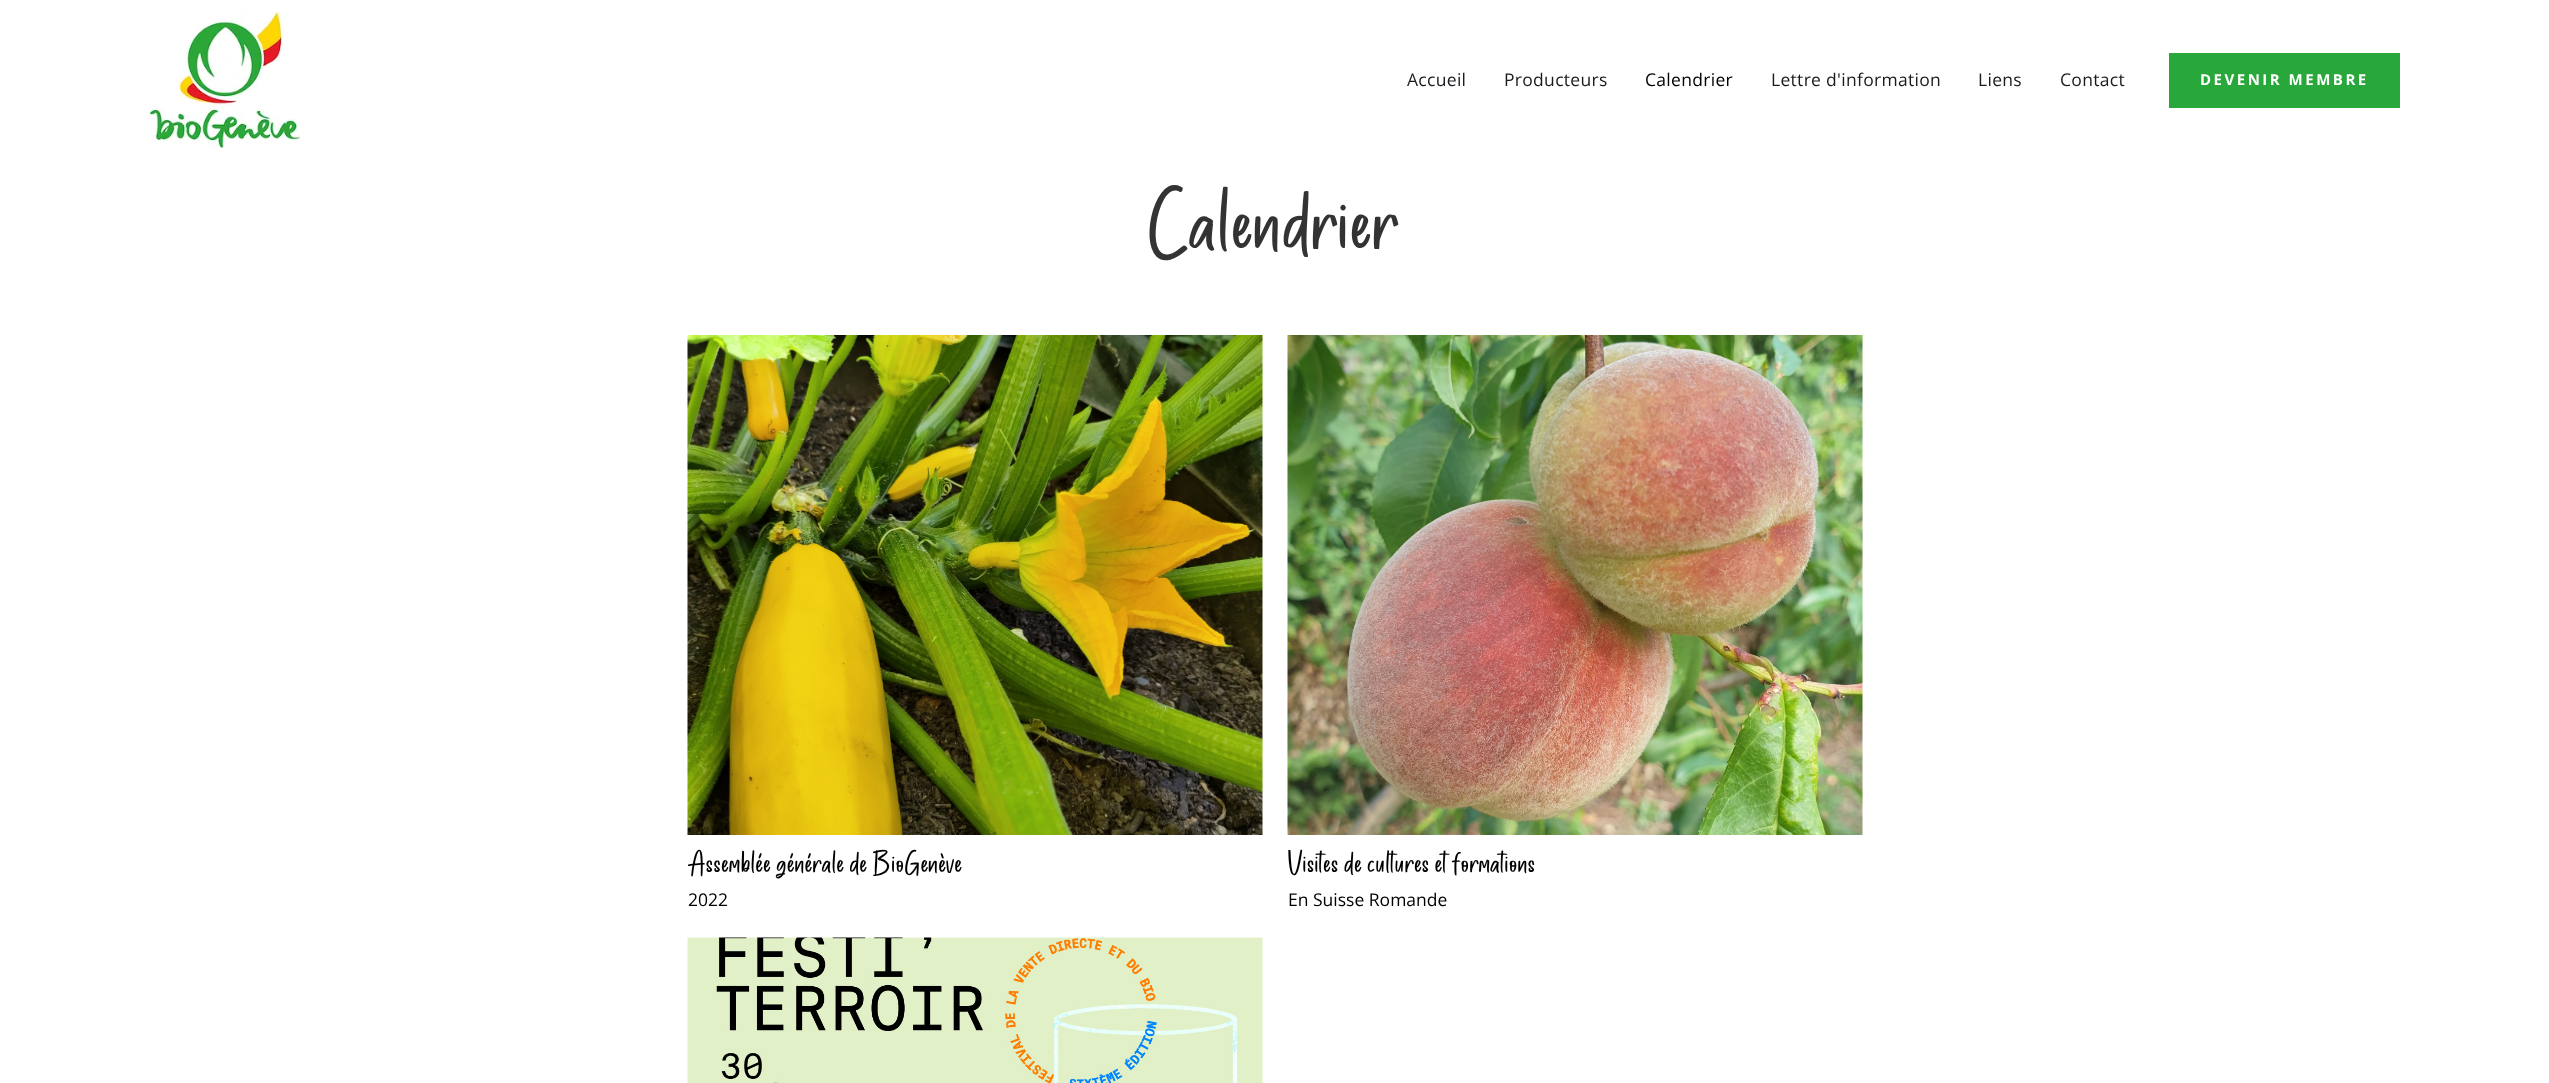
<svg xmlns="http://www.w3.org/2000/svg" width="2549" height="1083">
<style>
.a{font:17.5px Open Sans;letter-spacing:0.3px;fill:#1a1b1f}
.b{font:17.5px Open Sans;letter-spacing:0.3px;fill:#000}
.c{font:bold 15px Open Sans;letter-spacing:2.5px;fill:#fff}
.d{font:100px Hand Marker;fill:#333}
.e{font:35px Hand Marker;fill:#000}
.f{font:17.5px Open Sans;fill:#000}
</style>
<rect width="100%" height="100%" fill="#fff"/>
<image href="1.png" x="150" y="12" width="150" height="136"/>
<path fill="#28a83b" d="M2169 53h231v55H2169z"/>
<image href="2.png" x="687" y="335" width="576" height="500"/>
<image href="3.png" x="1287" y="335" width="576" height="500"/>
<image href="4.png" x="687" y="937" width="576" height="146"/>
<text class="a" x="1407" y="86">Accueil</text>
<text class="a" x="1504" y="86">Producteurs</text>
<text class="b" x="1645" y="86">Calendrier</text>
<text class="a" x="1771" y="86">Lettre d'information</text>
<text class="a" x="1978" y="86">Liens</text>
<text class="a" x="2060" y="86">Contact</text>
<text class="c" x="2200" y="85">DEVENIR MEMBRE</text>
<text class="d" x="1149" y="260">Calendrier</text>
<text class="e" x="688" y="876">Assemblée générale de BioGenève</text>
<text class="f" x="688" y="906">2022</text>
<text class="e" x="1288" y="876">Visites de cultures et formations</text>
<text class="f" x="1288" y="906">En Suisse Romande</text>
</svg>
